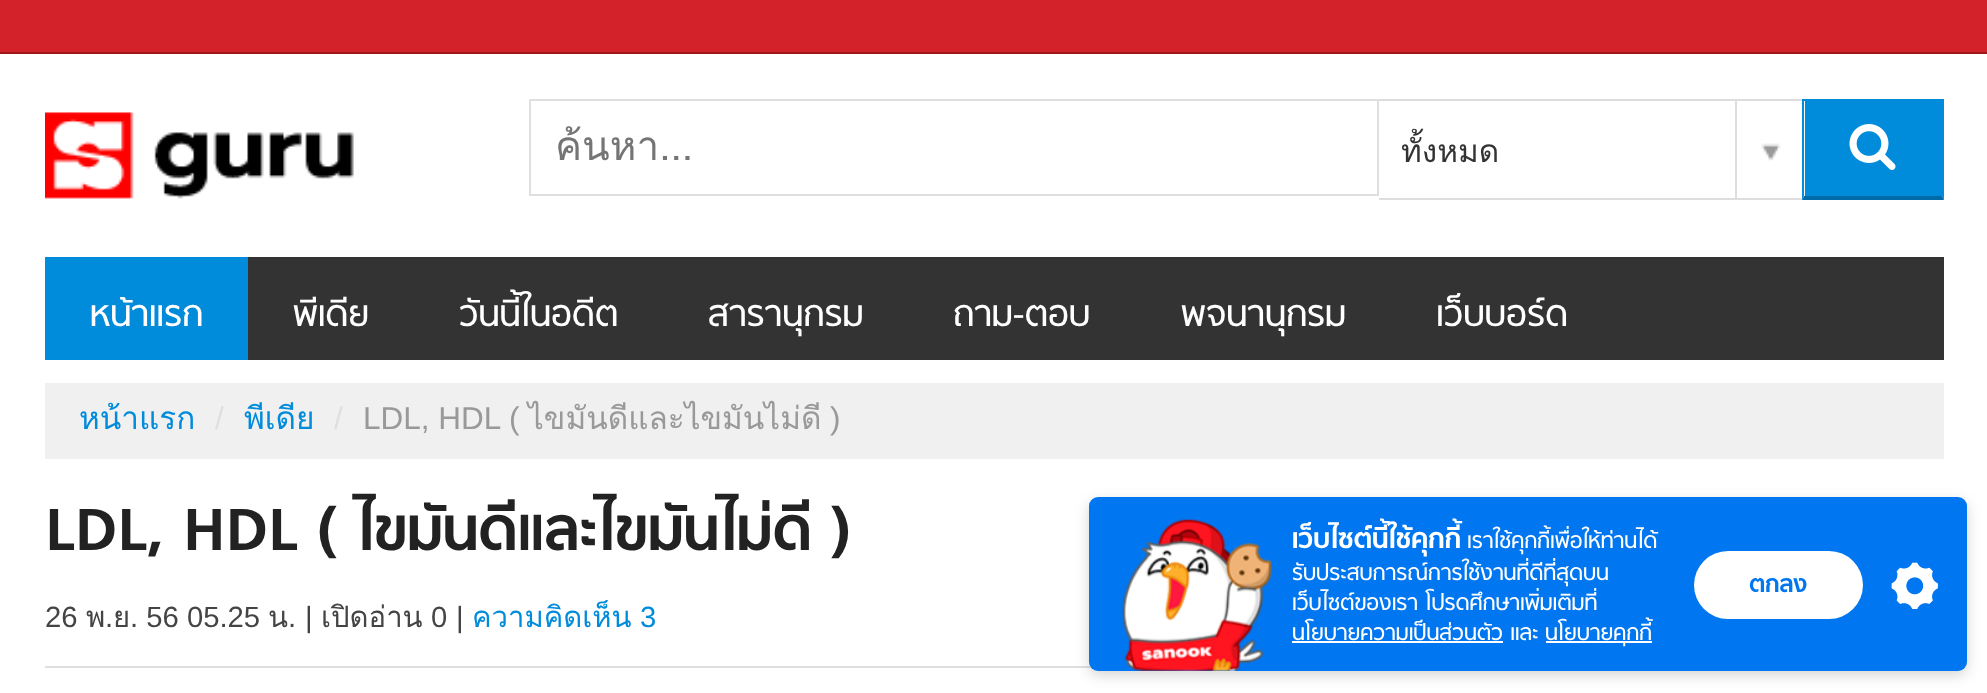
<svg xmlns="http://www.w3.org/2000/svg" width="1987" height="693">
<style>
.a{font:40.5px Loma;fill:#757575}
.b{font:31.5px Loma;fill:#333}
.c{font:40.5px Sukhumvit;fill:#fff}
.d{font:31.5px Loma;fill:#008bdb}
.e{font:31.5px Liberation Sans;fill:#dfdfdf}
.f{font:31.5px Liberation Sans;fill:#999}
.g{font:31.5px Loma;fill:#999}
.h{font:bold 67.5px Sukhumvit;fill:#222}
.i{font:29.25px Liberation Sans;fill:#444}
.j{font:29.25px Loma;fill:#444}
.k{font:29.25px Loma;fill:#008bdb}
.l{font:29.25px Liberation Sans;fill:#008bdb}
.m{font:bold 31px 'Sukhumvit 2';fill:#fff}
.n{font:24.75px 'Sukhumvit 2';fill:#fff}
.o{font:bold 27px 'Sukhumvit 2';fill:#0076f1}
</style>
<defs>
<clipPath id="clip1"><path d="M554 113h801v65H554z"/></clipPath>
</defs>
<rect width="100%" height="100%" fill="#fff"/>
<path fill="#d3222a" d="M0 0h1987v52H0z"/>
<path fill="#9d1919" d="M0 52h1987v2H0z"/>
<image href="1.png" x="45" y="112" width="309" height="87"/>
<path fill="none" stroke="#dfdfdf" stroke-width="2" d="M530 100h848v95H530z"/>
<path fill="#ddd" d="M1379 99h423v2H1379z"/>
<path fill="#ddd" d="M1379 198h423v2H1379z"/>
<image href="2.png" x="1761" y="143" width="20" height="18"/>
<path fill="#ddd" d="M1735 101h2v97H1735z"/>
<path fill="#008bdb" d="M1805 101h137v95H1805z"/>
<path fill="#008bdb" d="M1802 99h142v2H1802z"/>
<path fill="#008bdb" d="M1944 99v101l-2-4v-95z"/>
<path fill="#006ba8" d="M1944 200h-142l2-4h138z"/>
<path fill="#008bdb" d="M1802 200v-101l2 2v95z"/>
<image href="3.png" x="1849" y="124" width="47" height="46"/>
<path fill="#333" d="M248 257h1696v103H248z"/>
<path fill="#008bdb" d="M45 257h203v103H45z"/>
<path fill="#f0f0f0" d="M45 383h1899v76H45z"/>
<path fill="#dfdfdf" d="M45 666h1047v2H45z"/>
<rect fill="#0000002b" filter="blur(7px)" x="1089" y="502" width="878" height="173" rx="9"/>
<rect fill="#0076f1" x="1089" y="497" width="878" height="174" rx="9"/>
<image href="4.png" x="1121" y="519" width="151" height="152"/>
<path fill="#fff" d="M1292 641h211v2H1292z"/>
<path fill="#fff" d="M1546 641h106v2H1546z"/>
<rect fill="#fff" x="1694" y="551" width="169" height="68" rx="34"/>
<image href="5.png" x="1891" y="562" width="47" height="48"/>
<g clip-path="url(#clip1)">
<text class="a" x="555" y="160">ค้นหา...</text>
</g>
<text class="b" x="1401" y="162">ทั้งหมด</text>
<text class="c" x="90" y="326">หน้าแรก</text>
<text class="c" x="293" y="326">พีเดีย</text>
<text class="c" x="459" y="326">วันนี้ในอดีต</text>
<text class="c" x="708" y="326">สารานุกรม</text>
<text class="c" x="953" y="326">ถาม-ตอบ</text>
<text class="c" x="1181" y="326">พจนานุกรม</text>
<text class="c" x="1436" y="326">เว็บบอร์ด</text>
<text class="d" x="79" y="429">หน้าแรก</text>
<text class="e" x="215" y="429">/</text>
<text class="d" x="244" y="429">พีเดีย</text>
<text class="e" x="334" y="429">/</text>
<text class="f" x="363" y="429">LDL, HDL (</text>
<text class="g" x="528" y="429">ไขมันดีและไขมันไม่ดี</text>
<text class="f" x="830" y="429">)</text>
<text class="h" x="45" y="550">LDL, HDL ( ไขมันดีและไขมันไม่ดี )</text>
<text class="i" x="45" y="627">26</text>
<text class="j" x="86" y="627">พ</text>
<text class="i" x="105" y="627">.</text>
<text class="j" x="113" y="627">ย</text>
<text class="i" x="130" y="627">. 56 05.25</text>
<text class="j" x="268" y="627">น</text>
<text class="i" x="288" y="627">.</text>
<text class="i" x="305" y="627">|</text>
<text class="j" x="321" y="627">เปิดอ่าน</text>
<text class="i" x="431" y="627">0</text>
<text class="i" x="456" y="627">|</text>
<text class="k" x="472" y="627">ความคิดเห็น</text>
<text class="l" x="640" y="627">3</text>
<text class="m" x="1292" y="548">เว็บไซต์นี้ใช้คุกกี้</text>
<text class="n" x="1467" y="548">เราใช้คุกกี้เพื่อให้ท่านได้</text>
<text class="n" x="1292" y="580">รับประสบการณ์การใช้งานที่ดีที่สุดบน</text>
<text class="n" x="1292" y="610">เว็บไซต์ของเรา โปรดศึกษาเพิ่มเติมที่</text>
<text class="n" x="1292" y="640">นโยบายความเป็นส่วนตัว และ</text>
<text class="n" x="1545" y="640">นโยบายคุกกี้</text>
<text class="o" x="1749" y="592">ตกลง</text>
</svg>
